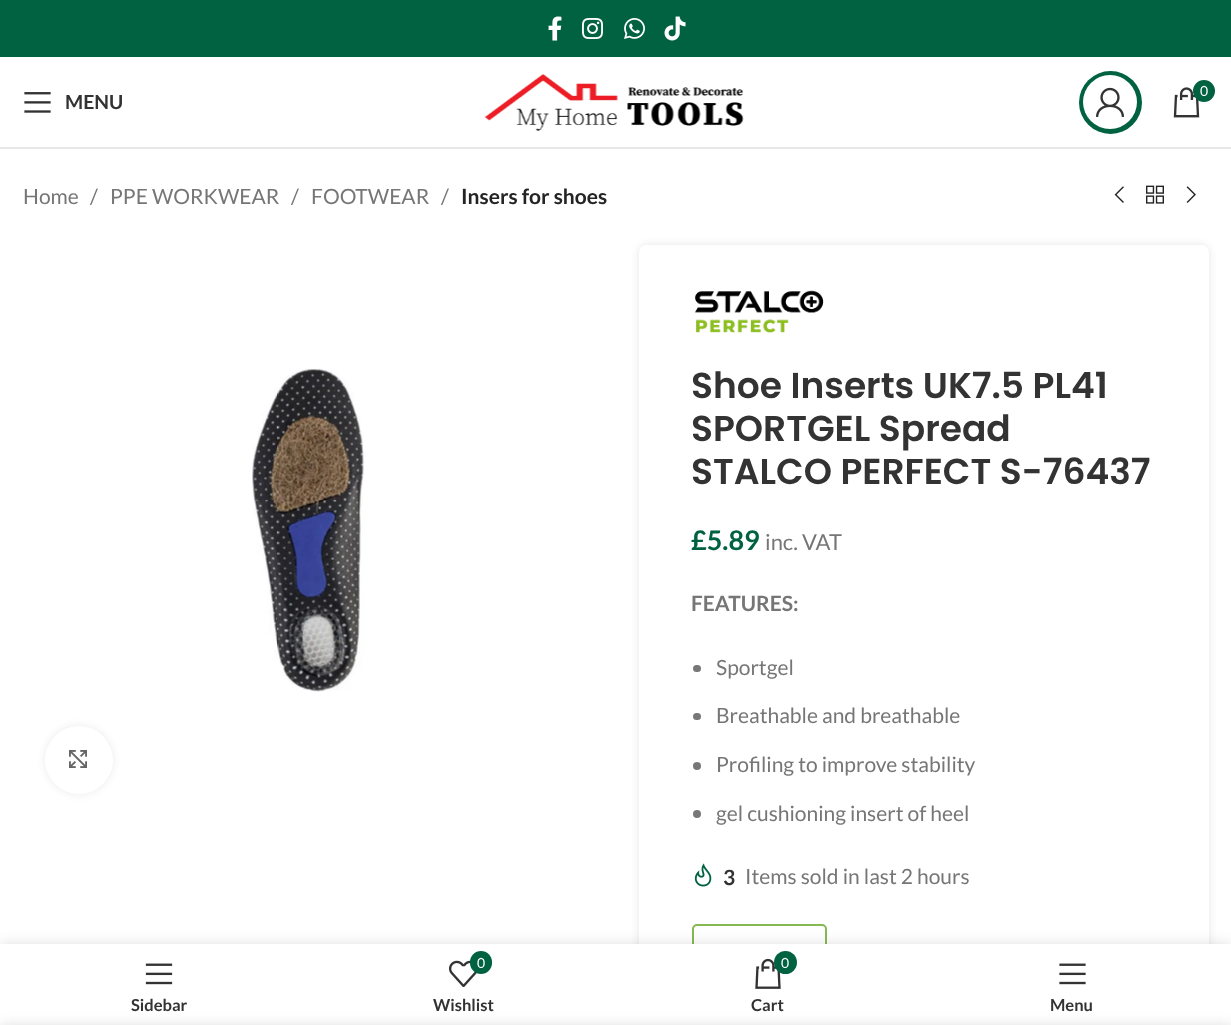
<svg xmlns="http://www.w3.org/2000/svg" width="1231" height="1025">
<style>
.a{font:14px Lato;fill:#fff}
.b{font:bold 19.5px Lato;fill:#333}
.c{font:21px Lato;fill:#767676}
.d{font:bold 21px Lato;fill:#242424}
.e{font:600 36px Poppins;fill:#333}
.f{font:bold 27px Lato;fill:#006241}
.g{font:22px Lato;fill:#767676}
.h{font:bold 21px Lato;fill:#767676}
.i{font:bold 21px Lato;fill:#333}
.j{font:bold 16.5px Lato;fill:#333}
</style>
<defs>
<clipPath id="clip1"><path d="M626 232h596v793h-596zm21 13h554c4.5 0 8 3.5 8 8v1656c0 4.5-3.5 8-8 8h-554c-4.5 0-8-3.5-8-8v-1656c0-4.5 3.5-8 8-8z" clip-rule="evenodd"/></clipPath>
</defs>
<rect width="100%" height="100%" fill="#fff"/>
<path fill="#006241" d="M0 0h1231v57H0z"/>
<image href="1.png" x="548" y="16" width="14" height="25"/>
<image href="2.png" x="582" y="18" width="21" height="21"/>
<image href="3.png" x="624" y="18" width="21" height="21"/>
<image href="4.png" x="664" y="16" width="22" height="25"/>
<path fill="#e8e8e8" d="M0 147h1231v2H0z"/>
<image href="5.png" x="484" y="74" width="260" height="57"/>
<circle fill="#006241" cx="1110.5" cy="102.5" r="31.5"/>
<circle fill="#fff" cx="1110" cy="102" r="27"/>
<image href="6.png" x="1096" y="87" width="28" height="30"/>
<image href="7.png" x="1173" y="87" width="27" height="31"/>
<circle fill="#006241" cx="1204" cy="91" r="11"/>
<image href="8.png" x="24" y="92" width="27" height="21"/>
<image href="9.png" x="1114" y="186" width="10" height="17"/>
<image href="10.png" x="1146" y="185" width="18" height="19"/>
<image href="11.png" x="1186" y="186" width="10" height="17"/>
<image href="12.png" x="252" y="368" width="113" height="324"/>
<rect fill="#00000014" filter="blur(4px)" x="45" y="726" width="68" height="68" rx="34"/>
<circle fill="#fff" cx="79" cy="760" r="34"/>
<image href="13.png" x="69" y="750" width="18" height="18"/>
<g clip-path="url(#clip1)">
<rect fill="#0000001a" filter="blur(4px)" x="639" y="245" width="570" height="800" rx="8"/>
</g>
<image href="14.png" x="695" y="290" width="129" height="43"/>
<rect fill="#777" x="693" y="665" width="8" height="7" rx="3.5"/>
<rect fill="#777" x="693" y="713" width="8" height="7" rx="3.5"/>
<circle fill="#777" cx="697" cy="766" r="4"/>
<circle fill="#777" cx="697" cy="814" r="4"/>
<image href="15.png" x="694" y="863" width="18" height="24"/>
<rect fill="none" stroke="#85b951" stroke-width="2" x="693" y="925" width="133" height="51" rx="4"/>
<path fill="#0000001f" filter="blur(7px)" d="M0 944h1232v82H0z"/>
<path fill="#fff" d="M0 944h1231v81H0z"/>
<image href="16.png" x="145" y="963" width="28" height="22"/>
<image href="17.png" x="449" y="960" width="28" height="27"/>
<rect fill="#006241" x="470" y="951" width="22" height="23" rx="11"/>
<image href="18.png" x="755" y="958" width="26" height="31"/>
<circle fill="#006241" cx="785.5" cy="962.5" r="11.5"/>
<image href="19.png" x="1059" y="963" width="27" height="22"/>
<path fill="#00000024" filter="blur(7px)" d="M0 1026h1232v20H0z"/>
<text class="a" x="1200" y="96">0</text>
<text class="b" x="65" y="109">MENU</text>
<text class="c" x="23" y="204">Home</text>
<text class="c" x="90" y="204">/</text>
<text class="c" x="110" y="204">PPE WORKWEAR</text>
<text class="c" x="291" y="204">/</text>
<text class="c" x="311" y="204">FOOTWEAR</text>
<text class="c" x="441" y="204">/</text>
<text class="d" x="461" y="204">Insers for shoes</text>
<text class="e" x="691" y="398">Shoe Inserts UK7.5 PL41</text>
<text class="e" x="691" y="441">SPORTGEL Spread</text>
<text class="e" x="691" y="484">STALCO PERFECT S-76437</text>
<text class="f" x="691" y="550">£5.89</text>
<text class="g" x="765" y="550">inc. VAT</text>
<text class="h" x="691" y="611">FEATURES:</text>
<text class="c" x="716" y="675">Sportgel</text>
<text class="c" x="716" y="723">Breathable and breathable</text>
<text class="c" x="716" y="772">Profiling to improve stability</text>
<text class="c" x="716" y="821">gel cushioning insert of heel</text>
<text class="i" x="723" y="885">3</text>
<text class="c" x="745" y="884">Items sold in last 2 hours</text>
<text class="j" x="131" y="1011">Sidebar</text>
<text class="a" x="477" y="968">0</text>
<text class="j" x="433" y="1011">Wishlist</text>
<text class="a" x="781" y="968">0</text>
<text class="j" x="751" y="1011">Cart</text>
<text class="j" x="1050" y="1011">Menu</text>
</svg>
